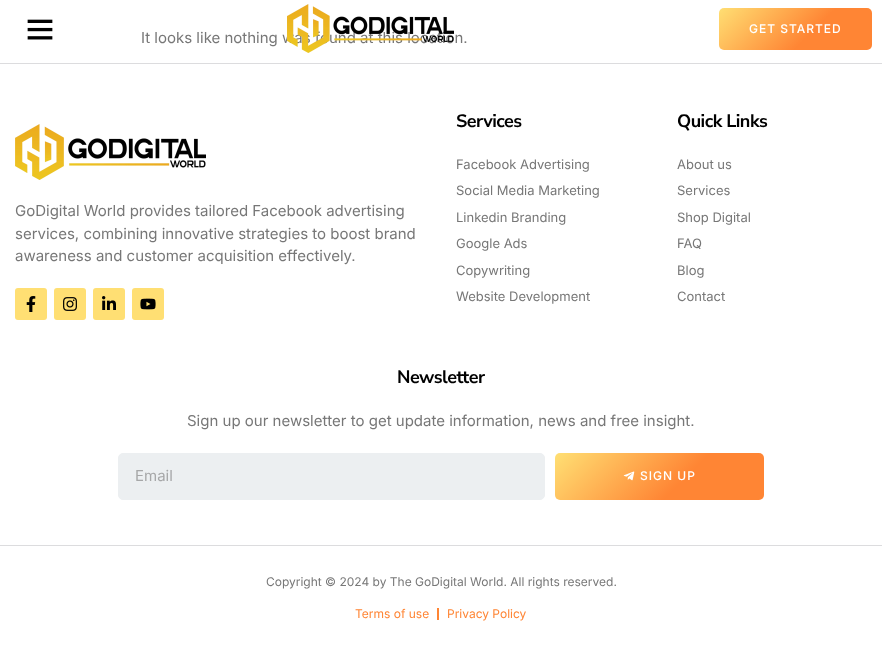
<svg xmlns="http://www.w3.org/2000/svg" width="882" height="650">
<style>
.a{font:500 12px Inter;letter-spacing:1px;fill:#fff}
.b{font:15px Inter;fill:#777}
.c{font:bold 18px Nunito Sans;letter-spacing:-0.5px;fill:#000}
.d{font:13px Inter;fill:#777}
.e{font:15px Inter;fill:#a6a7a8}
.f{font:12px Inter;fill:#777}
.g{font:12px Inter;fill:#ff8534}
</style>
<defs>
<linearGradient id="g1" gradientUnits="userSpaceOnUse" x1="747" y1="-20" x2="844" y2="78"><stop offset="0" stop-color="#ffdf73"/><stop offset="0.6" stop-color="#ff8534"/></linearGradient>
<linearGradient id="g2" gradientUnits="userSpaceOnUse" x1="596" y1="413" x2="724" y2="541"><stop offset="0" stop-color="#ffdf73"/><stop offset="0.6" stop-color="#ff8534"/></linearGradient>
</defs>
<rect width="100%" height="100%" fill="#fff"/>
<path fill="#dcdcde" d="M0 63h882v1H0z"/>
<image href="1.png" x="27" y="19" width="26" height="21"/>
<rect fill="url(#g1)" x="719" y="8" width="153" height="42" rx="5"/>
<path fill="#dcdcde" d="M0 545h882v1H0z"/>
<image href="3.png" x="15" y="124" width="191" height="56"/>
<rect fill="#ffdf73" x="15" y="288" width="32" height="32" rx="3"/>
<image href="4.png" x="26" y="296" width="10" height="16"/>
<rect fill="#ffdf73" x="54" y="288" width="32" height="32" rx="3"/>
<image href="5.png" x="63" y="297" width="14" height="14"/>
<rect fill="#ffdf73" x="93" y="288" width="32" height="32" rx="3"/>
<image href="6.png" x="102" y="296" width="14" height="14"/>
<rect fill="#ffdf73" x="132" y="288" width="32" height="32" rx="3"/>
<image href="7.png" x="140" y="298" width="16" height="12"/>
<rect fill="#eceff1" stroke="#eceff1" x="118.5" y="453.5" width="426" height="46" rx="4.5"/>
<rect fill="url(#g2)" x="555" y="453" width="209" height="47" rx="5"/>
<image href="8.png" x="623" y="471" width="12" height="10"/>
<path fill="#ff8534" d="M437 608h2v12H437z"/>
<text class="a" x="749" y="33">GET STARTED</text>
<text class="b" x="141" y="43">It looks like nothing was found at this location.</text>
<image href="2.png" x="287" y="4" width="167" height="49"/>
<text class="b" x="15" y="216">GoDigital World provides tailored Facebook advertising</text>
<text class="b" x="15" y="239">services, combining innovative strategies to boost brand</text>
<text class="b" x="15" y="261">awareness and customer acquisition effectively.</text>
<text class="c" x="456" y="127">Services</text>
<text class="d" x="456" y="169">Facebook Advertising</text>
<text class="d" x="456" y="195">Social Media Marketing</text>
<text class="d" x="456" y="222">Linkedin Branding</text>
<text class="d" x="456" y="248">Google Ads</text>
<text class="d" x="456" y="275">Copywriting</text>
<text class="d" x="456" y="301">Website Development</text>
<text class="c" x="677" y="127">Quick Links</text>
<text class="d" x="677" y="169">About us</text>
<text class="d" x="677" y="195">Services</text>
<text class="d" x="677" y="222">Shop Digital</text>
<text class="d" x="677" y="248">FAQ</text>
<text class="d" x="677" y="275">Blog</text>
<text class="d" x="677" y="301">Contact</text>
<text class="c" x="397" y="383">Newsletter</text>
<text class="b" x="187" y="426">Sign up our newsletter to get update information, news and free insight.</text>
<text class="e" x="135" y="481">Email</text>
<text class="a" x="640" y="480">SIGN UP</text>
<text class="f" x="266" y="586">Copyright © 2024 by The GoDigital World. All rights reserved.</text>
<text class="g" x="355" y="618">Terms of use</text>
<text class="g" x="447" y="618">Privacy Policy</text>
</svg>
